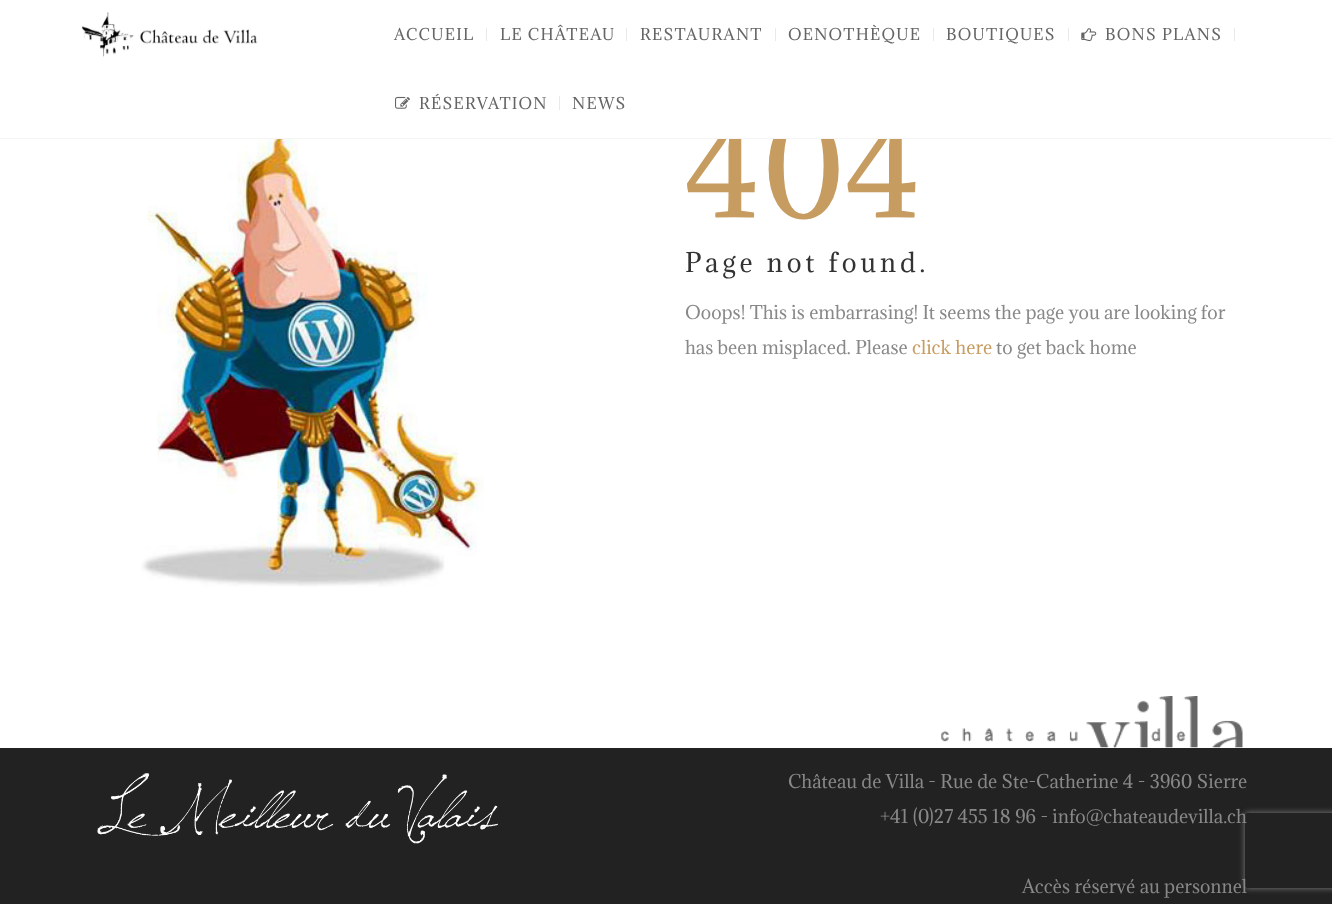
<svg xmlns="http://www.w3.org/2000/svg" width="1332" height="904">
<style>
.a{font:15px Adamina;letter-spacing:1.25px;fill:#656565}
.b{font:125px Adamina;fill:#c79c60}
.c{font:25px Adamina;letter-spacing:4px;fill:#333}
.d{font:17.5px Adamina;fill:#888}
.e{font:17.5px Adamina;fill:#c79c60}
</style>
<defs>
<clipPath id="clip1"><path d="M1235 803h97v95h-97zm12.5 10h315c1.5 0 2.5 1 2.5 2.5v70c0 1.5-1 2.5-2.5 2.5h-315c-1.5 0-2.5-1-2.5-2.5v-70c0-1.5 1-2.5 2.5-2.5z" clip-rule="evenodd"/></clipPath>
</defs>
<rect width="100%" height="100%" fill="#fff"/>
<image href="1.png" x="82" y="12" width="176" height="45"/>
<path fill="#e9e9e9" d="M486 28h1v13H486z"/>
<path fill="#e9e9e9" d="M626 28h1v13H626z"/>
<path fill="#e9e9e9" d="M775 28h1v13H775z"/>
<path fill="#e9e9e9" d="M933 28h1v13H933z"/>
<path fill="#e9e9e9" d="M1068 28h1v13H1068z"/>
<image href="2.png" x="1081" y="28" width="16" height="14"/>
<path fill="#e9e9e9" d="M1234 28h1v13H1234z"/>
<image href="3.png" x="395" y="96" width="15" height="13"/>
<path fill="#e9e9e9" d="M559 96h1v14H559z"/>
<image href="4.png" x="141" y="139" width="343" height="448"/>
<image href="5.png" x="941" y="696" width="302" height="52"/>
<path fill="#222" d="M0 748h1332v156H0z"/>
<image href="6.png" x="97" y="773" width="402" height="71"/>
<g clip-path="url(#clip1)">
<rect fill="#808080" filter="blur(3px)" x="1245" y="813" width="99" height="75" rx="2.5"/>
</g>
<text class="a" x="394" y="40">ACCUEIL</text>
<text class="a" x="500" y="40">LE CHÂTEAU</text>
<text class="a" x="640" y="40">RESTAURANT</text>
<text class="a" x="788" y="40">OENOTHÈQUE</text>
<text class="a" x="946" y="40">BOUTIQUES</text>
<text class="a" x="1105" y="40">BONS PLANS</text>
<text class="a" x="419" y="109">RÉSERVATION</text>
<text class="a" x="572" y="109">NEWS</text>
<text class="b" x="685" y="217">404</text>
<path fill="#f5f5f5" d="M0 138h1332v1H0z"/>
<path fill="#fff" d="M718 114h184v24H718z"/>
<text class="c" x="685" y="272">Page not found.</text>
<text class="d" x="685" y="319">Ooops! This is embarrasing! It seems the page you are looking for</text>
<text class="d" x="685" y="354">has been misplaced. Please</text>
<text class="e" x="912" y="354">click here</text>
<text class="d" x="996" y="354">to get back home</text>
<text class="d" x="788" y="788">Château de Villa - Rue de Ste-Catherine 4 - 3960 Sierre</text>
<text class="d" x="880" y="823">+41 (0)27 455 18 96 - info@chateaudevilla.ch</text>
<text class="d" x="1022" y="893">Accès réservé au personnel</text>
</svg>
